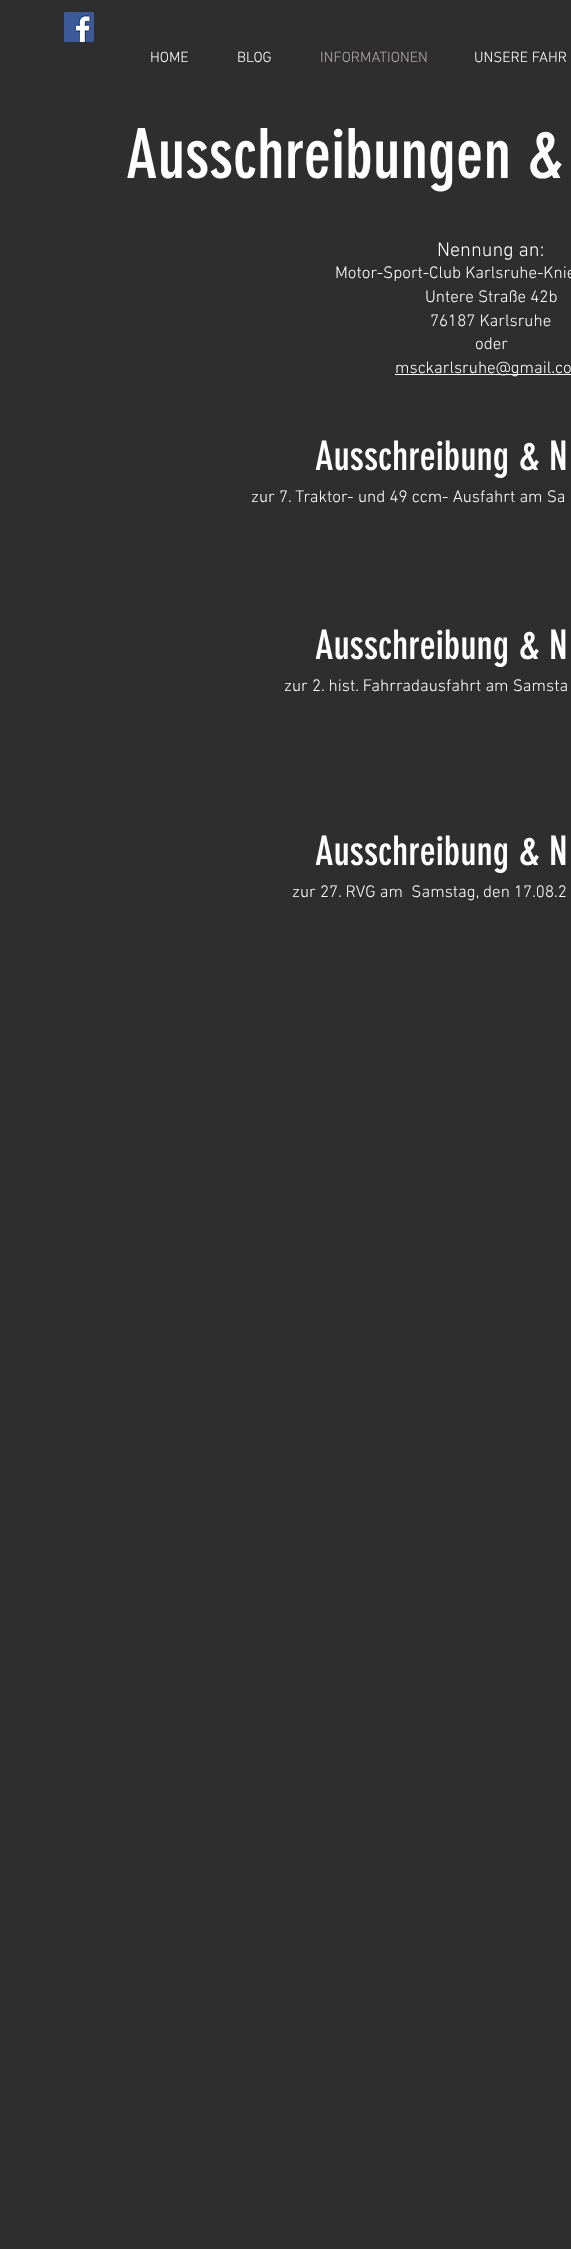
<svg xmlns="http://www.w3.org/2000/svg" width="571" height="2249">
<style>
.a{font:300 15px 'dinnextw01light';fill:#fff}
.b{font:300 15px 'dinnextw01light';fill:#b0aaa9}
.c{font:68px 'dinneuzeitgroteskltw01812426';fill:#fff}
.d{font:300 20px 'dinnextw01light';fill:#fff}
.e{font:300 17px 'dinnextw01light';fill:#fff}
.f{font:40px 'dinneuzeitgroteskltw01812426';fill:#fff}
</style>
<rect width="100%" height="100%" fill="#2f2e2e"/>
<image href="1.png" x="64" y="12" width="30" height="30"/>
<path fill="#fff" d="M395 374h176v1H395z"/>
<text class="a" x="150" y="62">HOME</text>
<text class="a" x="237" y="62">BLOG</text>
<text class="b" x="320" y="62">INFORMATIONEN</text>
<text class="a" x="474" y="62">UNSERE FAHR</text>
<text class="c" x="126" y="178">Ausschreibungen &amp;</text>
<text class="d" x="437" y="256">Nennung an:</text>
<text class="e" x="335" y="278">Motor-Sport-Club Karlsruhe-Knie</text>
<text class="e" x="425" y="302">Untere Straße 42b</text>
<text class="e" x="430" y="326">76187 Karlsruhe</text>
<text class="e" x="475" y="349">oder</text>
<text class="e" x="395" y="373">msckarlsruhe@gmail.co</text>
<text class="f" x="315" y="470">Ausschreibung &amp; N</text>
<text class="e" x="251" y="502">zur 7. Traktor- und 49 ccm- Ausfahrt am Sa</text>
<text class="f" x="315" y="659">Ausschreibung &amp; N</text>
<text class="e" x="284" y="691">zur 2. hist. Fahrradausfahrt am Samsta</text>
<text class="f" x="315" y="865">Ausschreibung &amp; N</text>
<text class="e" xml:space="preserve" x="292" y="897">zur 27. RVG am  Samstag, den 17.08.2</text>
</svg>
